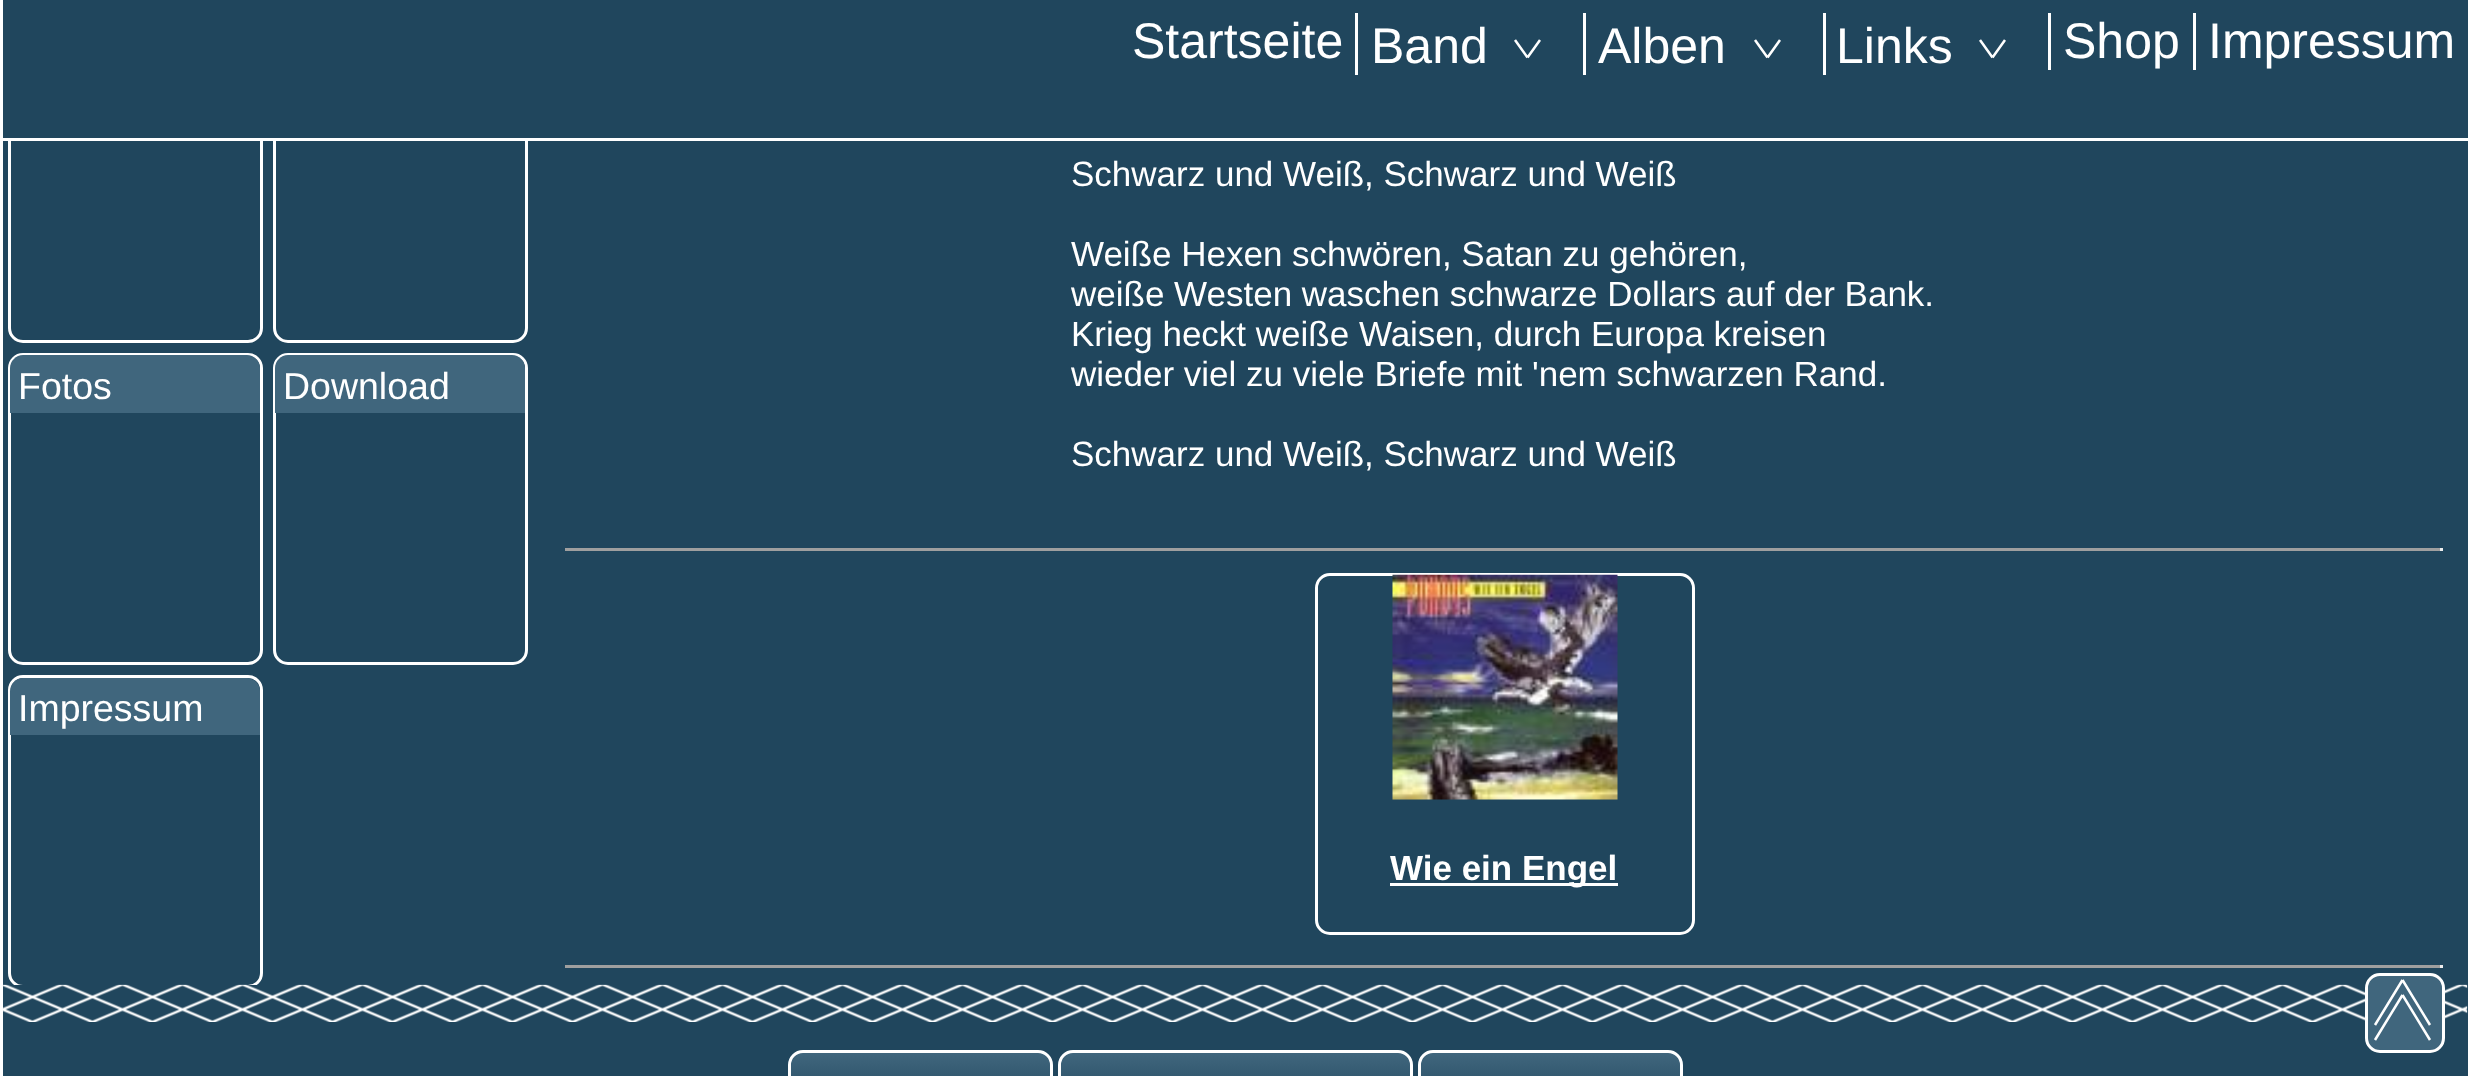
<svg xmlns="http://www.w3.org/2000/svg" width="2469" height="1076">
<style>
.a{font:50px Liberation Sans;fill:#fff}
.b{font:37.5px Liberation Sans;fill:#fff}
.c{font:35px Liberation Sans;fill:#fff}
.d{font:bold 35px Liberation Sans;fill:#fff}
</style>
<defs>
<clipPath id="clip1"><rect x="788" y="1050" width="265" height="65" rx="15"/></clipPath>
<linearGradient id="g1" gradientUnits="userSpaceOnUse" x1="920" y1="1053" x2="920" y2="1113"><stop offset="0" stop-color="#40667d"/><stop offset="1" stop-color="#20465d"/></linearGradient>
<clipPath id="clip2"><rect x="1058" y="1050" width="355" height="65" rx="15"/></clipPath>
<linearGradient id="g2" gradientUnits="userSpaceOnUse" x1="1235" y1="1053" x2="1235" y2="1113"><stop offset="0" stop-color="#40667d"/><stop offset="1" stop-color="#20465d"/></linearGradient>
<clipPath id="clip3"><rect x="1418" y="1050" width="265" height="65" rx="15"/></clipPath>
<linearGradient id="g3" gradientUnits="userSpaceOnUse" x1="1550" y1="1053" x2="1550" y2="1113"><stop offset="0" stop-color="#40667d"/><stop offset="1" stop-color="#20465d"/></linearGradient>
</defs>
<rect width="100%" height="100%" fill="#20465d"/>
<path fill="#fff" d="M2468 0h1v1076H2468z"/>
<path fill="#fff" d="M0 0h3v1076H0z"/>
<rect fill="none" stroke="#fff" stroke-width="3" x="9.5" y="31.5" width="252" height="310" rx="13.5"/>
<rect fill="none" stroke="#fff" stroke-width="3" x="274.5" y="31.5" width="252" height="310" rx="13.5"/>
<path fill="#20465d" d="M8 30h520v108H8z"/>
<path fill="#fff" d="M3 138h2465v3H3z"/>
<path fill="#fff" d="M1355 13h3v62H1355z"/>
<path fill="none" stroke="#fff" stroke-width="2.5" d="M1515 40l12.5 17.5m0 0l12.5-17.5"/>
<path fill="#fff" d="M1583 13h3v62H1583z"/>
<path fill="none" stroke="#fff" stroke-width="2.5" d="M1755 40l12.5 17.5m0 0l12.5-17.5"/>
<path fill="#fff" d="M1823 13h3v62H1823z"/>
<path fill="none" stroke="#fff" stroke-width="2.5" d="M1980 40l12.5 17.5m0 0l12.5-17.5"/>
<path fill="#fff" d="M2048 13h3v57H2048z"/>
<path fill="#fff" d="M2193 13h3v57H2193z"/>
<rect fill="none" stroke="#fff" stroke-width="3" x="9.5" y="354.5" width="252" height="309" rx="13.5"/>
<path fill="#40667d" d="M23 355h224c7 0 13 6 13 13v45h-250v-45c0-7 6-13 13-13z"/>
<rect fill="none" stroke="#fff" stroke-width="3" x="274.5" y="354.5" width="252" height="309" rx="13.5"/>
<path fill="#40667d" d="M288 355h224c7 0 13 6 13 13v45h-250v-45c0-7 6-13 13-13z"/>
<rect fill="none" stroke="#fff" stroke-width="3" x="9.5" y="676.5" width="252" height="310" rx="13.5"/>
<path fill="#40667d" d="M23 678h224c7 0 13 6 13 13v44h-250v-44c0-7 6-13 13-13z"/>
<path fill="#9f9f9f" d="M565 548h1878v3H565z"/>
<path fill="#eee" d="M2440 548h3v3H2440z"/>
<rect fill="none" stroke="#fff" stroke-width="3" x="1316.5" y="574.5" width="377" height="359" rx="13.5"/>
<image href="1.png" x="1392" y="574" width="226" height="226"/>
<path fill="#fff" d="M1390 883h228v3H1390z"/>
<path fill="#9f9f9f" d="M565 965h1878v3H565z"/>
<path fill="#eee" d="M2440 965h3v3H2440z"/>
<path fill="#20465d" d="M14 985h243v3H14z"/>
<image href="2.png" x="3" y="984" width="2465" height="38"/>
<rect fill="#40667d" stroke="#fff" stroke-width="3" x="2366.5" y="974.5" width="77" height="77" rx="13.5"/>
<path fill="none" stroke="#fff" stroke-width="2.5" d="M2375 1040l27.5-45m0 0l27.5 45m-55-15l27.5-45m0 0l27.5 45"/>
<g clip-path="url(#clip1)">
<path fill="url(#g1)" d="M788 1053h265v23H788z"/>
</g>
<rect fill="none" stroke="#fff" stroke-width="3" x="789.5" y="1051.5" width="262" height="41" rx="13.5"/>
<g clip-path="url(#clip2)">
<path fill="url(#g2)" d="M1058 1053h355v23H1058z"/>
</g>
<rect fill="none" stroke="#fff" stroke-width="3" x="1059.5" y="1051.5" width="352" height="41" rx="13.5"/>
<g clip-path="url(#clip3)">
<path fill="url(#g3)" d="M1418 1053h265v23H1418z"/>
</g>
<rect fill="none" stroke="#fff" stroke-width="3" x="1419.5" y="1051.5" width="262" height="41" rx="13.5"/>
<text class="a" x="1132" y="58">Startseite</text>
<text class="a" x="1371" y="63">Band</text>
<text class="a" x="1598" y="63">Alben</text>
<text class="a" x="1836" y="63">Links</text>
<text class="a" x="2063" y="58">Shop</text>
<text class="a" x="2208" y="58">Impressum</text>
<text class="b" x="18" y="399">Fotos</text>
<text class="b" x="283" y="399">Download</text>
<text class="b" x="18" y="721">Impressum</text>
<text class="c" x="1071" y="186">Schwarz und Weiß, Schwarz und Weiß</text>
<text class="c" x="1071" y="266">Weiße Hexen schwören, Satan zu gehören,</text>
<text class="c" x="1071" y="306">weiße Westen waschen schwarze Dollars auf der Bank.</text>
<text class="c" x="1071" y="346">Krieg heckt weiße Waisen, durch Europa kreisen</text>
<text class="c" x="1071" y="386">wieder viel zu viele Briefe mit 'nem schwarzen Rand.</text>
<text class="c" x="1071" y="466">Schwarz und Weiß, Schwarz und Weiß</text>
<text class="d" x="1390" y="880">Wie ein Engel</text>
</svg>
